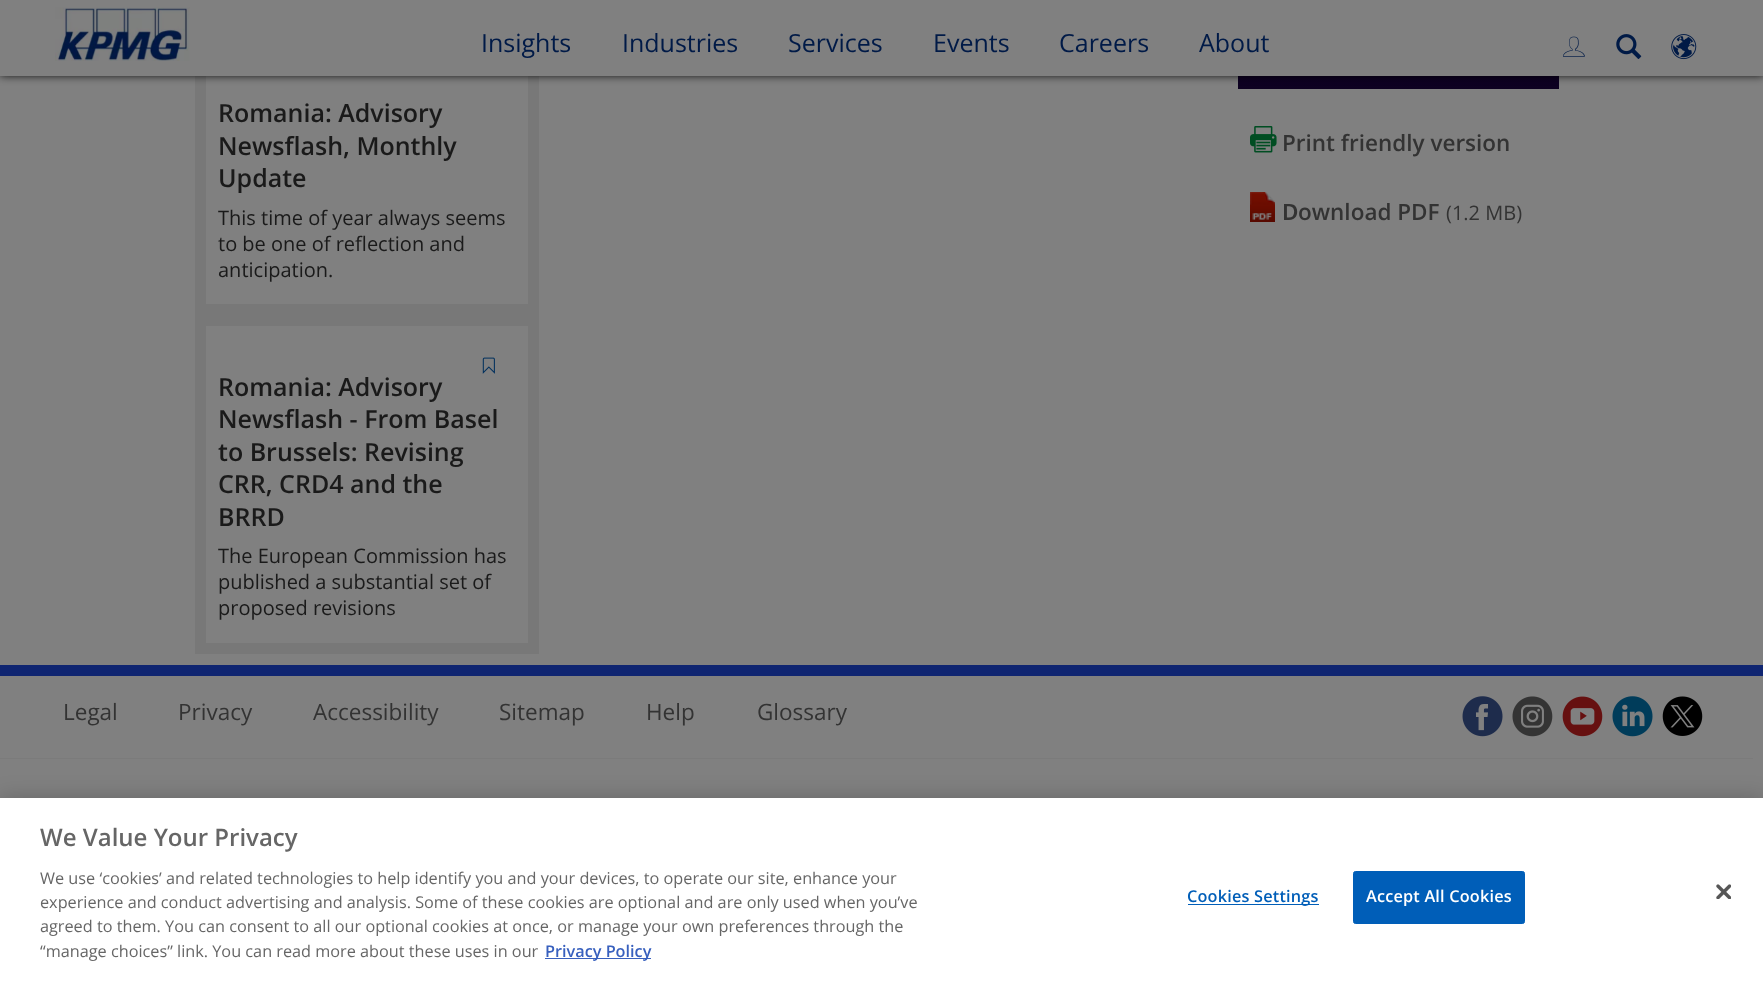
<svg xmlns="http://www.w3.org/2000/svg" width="1763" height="992">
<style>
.a{font:25px Open Sans;fill:#001a47}
.b{font:600 25px Open Sans;fill:#1a1a1a}
.c{font:20px Open Sans;fill:#1a1a1a}
.d{font:600 22.5px Open Sans;fill:#333}
.e{font:600 22.5px Noto Sans;fill:#333}
.f{font:20px Open Sans;fill:#333}
.g{font:22.5px Open Sans;fill:#333}
.h{font:600 24px Open Sans;fill:#666}
.i{font:16.25px Open Sans;fill:#666}
.j{font:600 16.25px Open Sans;fill:#3860be}
.k{font:600 16.25px Open Sans;letter-spacing:0.2px;fill:#005eb8}
.l{font:600 16.25px Open Sans;letter-spacing:0.2px;fill:#fff}
</style>
<defs>
<linearGradient id="g1" gradientUnits="userSpaceOnUse" x1="1398" y1="-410" x2="1398" y2="89"><stop offset="0" stop-color="#2c006c"/><stop offset="1" stop-color="#0d0121"/></linearGradient>
</defs>
<rect width="100%" height="100%" fill="#808080"/>
<path fill="#787878" d="M195 76h344v578H195z"/>
<path fill="#808080" d="M206 76h322v567H206z"/>
<path fill="url(#g1)" d="M1238 76h321v13H1238z"/>
<path fill="#000" filter="blur(5px)" d="M0 -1h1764v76H0z"/>
<path fill="#808080" d="M0 0h1763v76H0z"/>
<image href="1.png" x="55" y="7" width="135" height="54"/>
<image href="2.png" x="1563" y="36" width="22" height="21"/>
<image href="3.png" x="1616" y="34" width="26" height="25"/>
<image href="4.png" x="1671" y="34" width="26" height="26"/>
<path fill="#787878" d="M206 304h322v22H206z"/>
<image href="5.png" x="482" y="357" width="13" height="17"/>
<image href="6.png" x="1250" y="126" width="27" height="27"/>
<image href="7.png" x="1250" y="192" width="25" height="30"/>
<path fill="#0f2571" d="M0 665h1763v11H0z"/>
<path fill="#7b7b7b" d="M0 758h1753v1H0z"/>
<image href="8.png" x="1462" y="696" width="41" height="41"/>
<image href="9.png" x="1512" y="696" width="41" height="41"/>
<image href="10.png" x="1562" y="696" width="41" height="41"/>
<image href="11.png" x="1612" y="696" width="41" height="41"/>
<image href="12.png" x="1662" y="696" width="41" height="40"/>
<path fill="#00000033" filter="blur(11px)" d="M0 798h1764v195H0z"/>
<path fill="#fff" d="M0 798h1763v194H0z"/>
<path fill="#3860be" d="M545 958h106v1H545z"/>
<path fill="#005eb8" d="M1188 904h131v1H1188z"/>
<rect fill="#005eb8" stroke="#005eb8" x="1353.5" y="871.5" width="171" height="52" rx="2"/>
<image href="13.png" x="1716" y="884" width="15" height="15"/>
<text class="a" x="481" y="52">Insights</text>
<text class="a" x="622" y="52">Industries</text>
<text class="a" x="788" y="52">Services</text>
<text class="a" x="933" y="52">Events</text>
<text class="a" x="1059" y="52">Careers</text>
<text class="a" x="1199" y="52">About</text>
<text class="b" x="218" y="122">Romania: Advisory</text>
<text class="b" x="218" y="155">Newsflash, Monthly</text>
<text class="b" x="218" y="187">Update</text>
<text class="c" x="218" y="225">This time of year always seems</text>
<text class="c" x="218" y="251">to be one of reflection and</text>
<text class="c" x="218" y="277">anticipation.</text>
<text class="b" x="218" y="396">Romania: Advisory</text>
<text class="b" x="218" y="428">Newsflash - From Basel</text>
<text class="b" x="218" y="461">to Brussels: Revising</text>
<text class="b" x="218" y="493">CRR, CRD4 and the</text>
<text class="b" x="218" y="526">BRRD</text>
<text class="c" x="218" y="563">The European Commission has</text>
<text class="c" x="218" y="589">published a substantial set of</text>
<text class="c" x="218" y="615">proposed revisions</text>
<text class="d" x="1282" y="151">Print friendly version</text>
<text class="e" x="1282" y="220">D</text>
<text class="d" x="1298" y="220">ownload PDF</text>
<text class="f" x="1446" y="220">(1.2 MB)</text>
<text class="g" x="63" y="720">Legal</text>
<text class="g" x="178" y="720">Privacy</text>
<text class="g" x="313" y="720">Accessibility</text>
<text class="g" x="499" y="720">Sitemap</text>
<text class="g" x="646" y="720">Help</text>
<text class="g" x="757" y="720">Glossary</text>
<text class="h" x="40" y="846">We Value Your Privacy</text>
<text class="i" x="40" y="884">We use ‘cookies’ and related technologies to help identify you and your devices, to operate our site, enhance your</text>
<text class="i" x="40" y="908">experience and conduct advertising and analysis. Some of these cookies are optional and are only used when you’ve</text>
<text class="i" x="40" y="932">agreed to them. You can consent to all our optional cookies at once, or manage your own preferences through the</text>
<text class="i" x="40" y="957">“manage choices” link. You can read more about these uses in our</text>
<text class="j" x="545" y="957">Privacy Policy</text>
<text class="k" x="1187" y="902">Cookies Settings</text>
<text class="l" x="1366" y="902">Accept All Cookies</text>
</svg>
